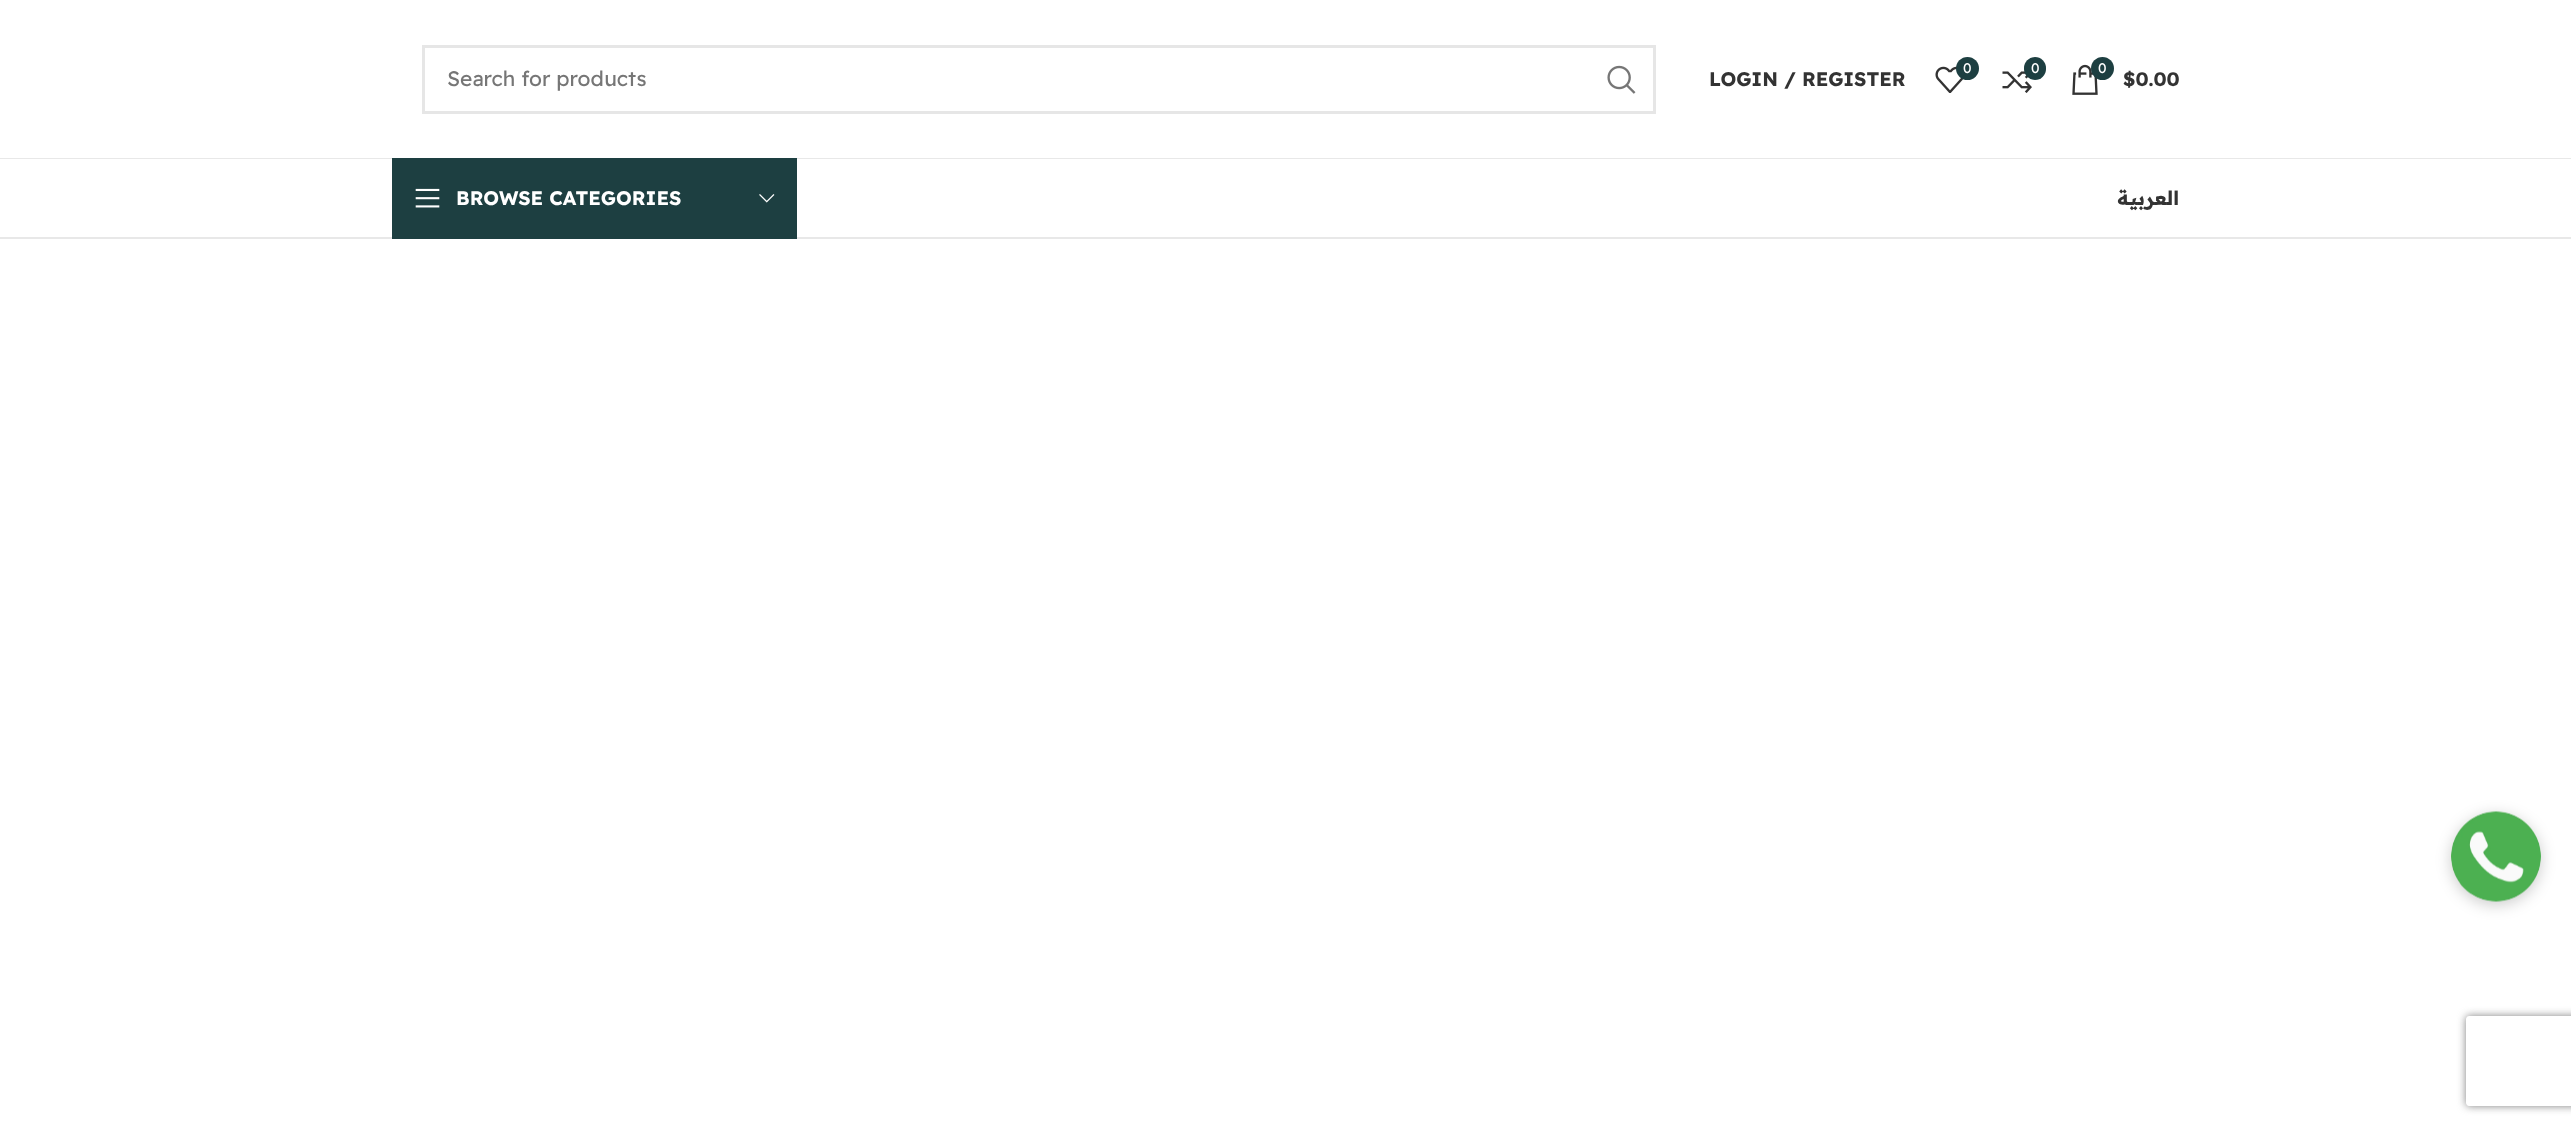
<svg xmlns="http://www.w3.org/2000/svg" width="2571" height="1126">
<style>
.a{font:21px Readex Pro;fill:#767676}
.b{font:bold 19.5px Readex Pro;fill:#333}
.c{font:14px Readex Pro;fill:#fff}
.d{font:bold 19.5px Readex Pro;fill:#fff}
.e{font:bold 19.5px Readex Pro;direction:rtl;fill:#333}
</style>
<defs>
<clipPath id="clip1"><path d="M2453 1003h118v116h-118zm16 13h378c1.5 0 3 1.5 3 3v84c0 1.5-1.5 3-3 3h-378c-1.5 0-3-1.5-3-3v-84c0-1.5 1.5-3 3-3z" clip-rule="evenodd"/></clipPath>
</defs>
<rect width="100%" height="100%" fill="#fff"/>
<path fill="#e8e8e8" d="M0 158h2571v1H0z"/>
<path fill="none" stroke="#e6e6e6" stroke-width="3" d="M423.5 46.5h1231v66H423.5z"/>
<image href="1.png" x="1607" y="65" width="29" height="29"/>
<image href="2.png" x="1935" y="66" width="29" height="27"/>
<circle fill="#1d3f41" cx="1967.5" cy="68.5" r="11.5"/>
<image href="3.png" x="2002" y="71" width="30" height="22"/>
<rect fill="#1d3f41" x="2024" y="57" width="22" height="23" rx="11"/>
<image href="4.png" x="2072" y="64" width="26" height="31"/>
<circle fill="#1d3f41" cx="2102.5" cy="68.5" r="11.5"/>
<path fill="#e8e8e8" d="M0 237h2571v2H0z"/>
<path fill="#1d3f41" d="M392 158h405v81H392z"/>
<image href="5.png" x="415" y="188" width="25" height="20"/>
<image href="6.png" x="759" y="194" width="16" height="9"/>
<rect fill="#00000033" filter="blur(7.5px)" x="2451" y="815" width="90" height="90" rx="45"/>
<image href="7.png" x="2451" y="811" width="90" height="91"/>
<g clip-path="url(#clip1)">
<rect fill="#808080" filter="blur(4px)" x="2466" y="1016" width="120" height="90" rx="3"/>
</g>
<text class="a" x="447" y="86">Search for products</text>
<text class="b" x="1709" y="86">LOGIN / REGISTER</text>
<text class="c" x="1963" y="73">0</text>
<text class="c" x="2031" y="73">0</text>
<text class="c" x="2098" y="73">0</text>
<text class="b" x="2123" y="86">$0.00</text>
<text class="d" x="456" y="205">BROWSE CATEGORIES</text>
<text class="e" x="2179" y="205">العربية</text>
</svg>
